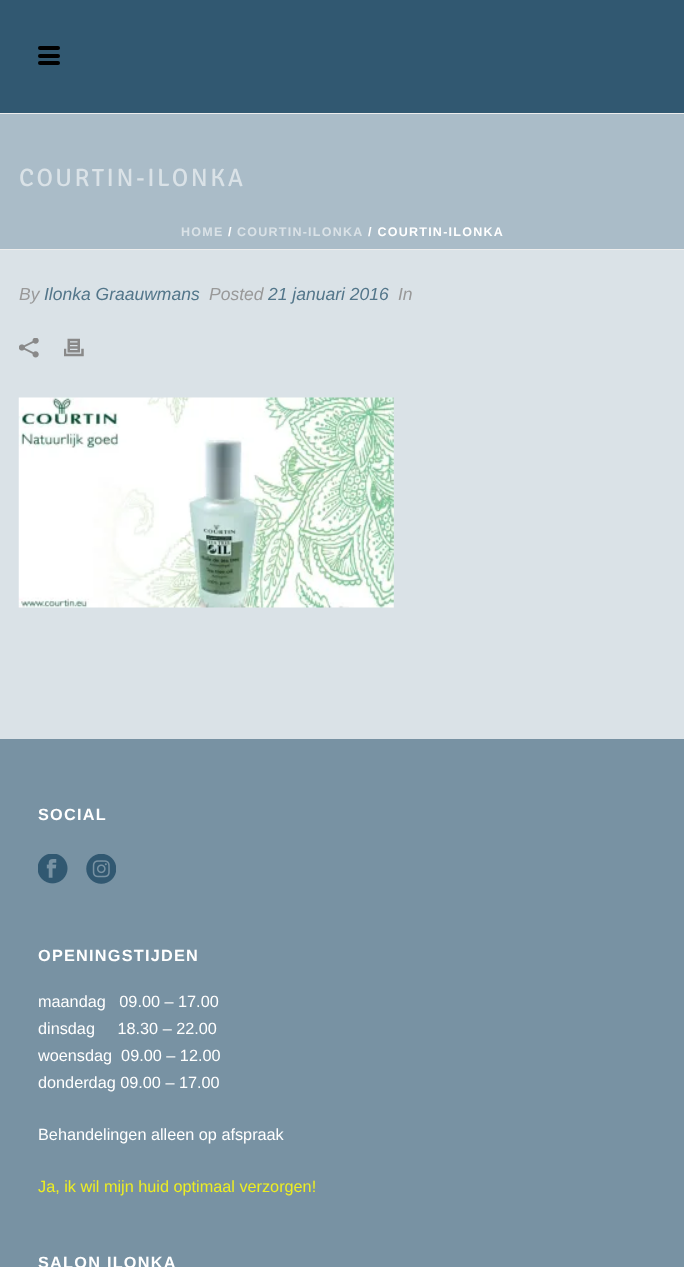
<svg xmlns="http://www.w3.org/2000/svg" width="684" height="1267">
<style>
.a{font:25px Signika;letter-spacing:2.5px;fill:#dae2e7}
.b{font:bold 12.5px Liberation Sans;letter-spacing:1.25px;fill:#dae2e7}
.c{font:bold 12.5px Liberation Sans;letter-spacing:1.25px;fill:#fff}
.d{font:italic 17.5px Liberation Sans;fill:#999}
.e{font:italic 17.5px Liberation Sans;fill:#53768a}
.f{font:bold 16.25px Liberation Sans;letter-spacing:1.25px;fill:#fff}
.g{font:16.25px Liberation Sans;fill:#fff}
.h{font:16.25px Liberation Sans;fill:#ee2}
</style>
<rect width="100%" height="100%" fill="#7892a3"/>
<path fill="#aabcc8" d="M0 114h684v135H0z"/>
<path fill="#ededed" d="M0 249h684v1H0z"/>
<path fill="#ededed" d="M0 113h684v1H0z"/>
<path fill="#315871" d="M0 0h684v113H0z"/>
<rect fill="#000" x="38" y="46" width="22" height="4" rx="2"/>
<rect fill="#000" x="38" y="54" width="22" height="4" rx="2"/>
<rect fill="#000" x="38" y="61" width="22" height="4" rx="2"/>
<path fill="#dae2e7" d="M0 250h684v489H0z"/>
<image href="1.png" x="19" y="338" width="20" height="20"/>
<image href="2.png" x="64" y="338" width="20" height="19"/>
<image href="3.png" x="18" y="397" width="376" height="211"/>
<image href="4.png" x="38" y="854" width="30" height="30"/>
<image href="5.png" x="86" y="854" width="30" height="30"/>
<text class="a" x="19" y="186">COURTIN-ILONKA</text>
<text class="b" x="181" y="236">HOME</text>
<text class="c" x="228" y="236">/</text>
<text class="b" x="237" y="236">COURTIN-ILONKA</text>
<text class="c" x="368" y="236">/ COURTIN-ILONKA</text>
<text class="d" x="19" y="300">By</text>
<text class="e" x="44" y="300">Ilonka Graauwmans</text>
<text class="d" x="209" y="300">Posted</text>
<text class="e" x="268" y="300">21 januari 2016</text>
<text class="d" x="398" y="300">In</text>
<text class="f" x="38" y="820">SOCIAL</text>
<text class="f" x="38" y="961">OPENINGSTIJDEN</text>
<text class="g" xml:space="preserve" x="38" y="1007">maandag   09.00 – 17.00</text>
<text class="g" xml:space="preserve" x="38" y="1034">dinsdag     18.30 – 22.00</text>
<text class="g" xml:space="preserve" x="38" y="1061">woensdag  09.00 – 12.00</text>
<text class="g" x="38" y="1088">donderdag 09.00 – 17.00</text>
<text class="g" x="38" y="1140">Behandelingen alleen op afspraak</text>
<text class="h" x="38" y="1192">Ja, ik wil mijn huid optimaal verzorgen!</text>
<text class="f" x="38" y="1268">SALON ILONKA</text>
</svg>
